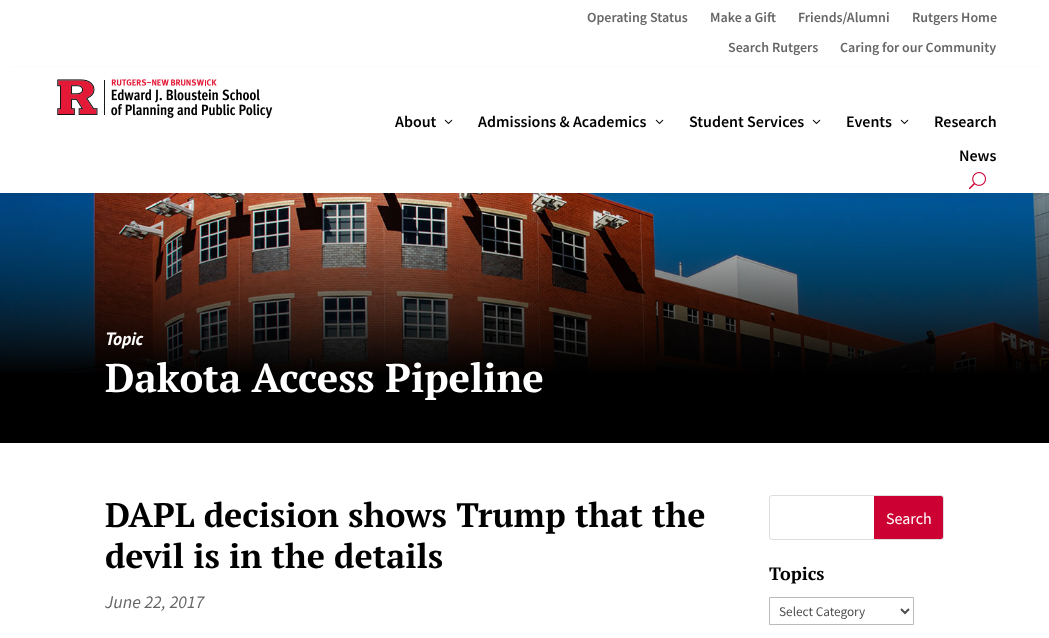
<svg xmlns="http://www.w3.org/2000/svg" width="1049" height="638">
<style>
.a{font:600 14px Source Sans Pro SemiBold;fill:#666}
.b{font:600 16px Source Sans Pro SemiBold;fill:#000}
.c{font:italic bold 18px PT Sans;fill:#fff}
.d{font:bold 40px PT Serif;fill:#fff}
.e{font:bold 34px PT Serif;fill:#000}
.f{font:italic 18px Source Sans Pro;fill:#666}
.g{font:16px Source Sans Pro;fill:#fff}
.h{font:bold 18px PT Serif;fill:#000}
.i{font:13.25px Source Sans Pro;fill:#4e4e4e}
</style>
<rect width="100%" height="100%" fill="#fff"/>
<image href="4.png" x="0" y="193" width="1049" height="180"/>
<path fill="#00000026" filter="blur(4px)" d="M6 74h1037v118H6z"/>
<path fill="#fff" d="M0 68h1049v125H0z"/>
<image href="1.png" x="57" y="79" width="216" height="40"/>
<image href="2.png" x="444" y="119" width="9" height="5"/>
<image href="2.png" x="655" y="119" width="9" height="5"/>
<image href="2.png" x="812" y="119" width="9" height="5"/>
<image href="2.png" x="900" y="119" width="9" height="5"/>
<image href="3.png" x="969" y="172" width="17" height="18"/>
<path fill="#000" d="M0 373h1049v70H0z"/>
<rect fill="none" stroke="#ddd" x="769.5" y="495.5" width="174" height="44" rx="2.5"/>
<path fill="#c03" d="M874 496h67c1 0 2 1 2 2v39c0 1-1 2-2 2h-67z"/>
<path fill="none" stroke="#bbb" d="M769.5 597.5h144v27H769.5z"/>
<path fill="none" stroke="#4e4e4e" stroke-width="2" d="M901 609l4 4l4-4"/>
<text class="a" x="587" y="22">Operating Status</text>
<text class="a" x="710" y="22">Make a Gift</text>
<text class="a" x="798" y="22">Friends/Alumni</text>
<text class="a" x="912" y="22">Rutgers Home</text>
<text class="a" x="728" y="52">Search Rutgers</text>
<text class="a" x="840" y="52">Caring for our Community</text>
<text class="b" x="395" y="127">About</text>
<text class="b" x="478" y="127">Admissions &amp; Academics</text>
<text class="b" x="689" y="127">Student Services</text>
<text class="b" x="846" y="127">Events</text>
<text class="b" x="934" y="127">Research</text>
<text class="b" x="959" y="161">News</text>
<text class="c" x="105" y="345">Topic</text>
<text class="d" x="105" y="392">Dakota Access Pipeline</text>
<text class="e" x="105" y="527">DAPL decision shows Trump that the</text>
<text class="e" x="105" y="568">devil is in the details</text>
<text class="f" x="105" y="608">June 22, 2017</text>
<text class="g" x="886" y="524">Search</text>
<text class="h" x="769" y="580">Topics</text>
<text class="i" x="779" y="616">Select Category</text>
</svg>
